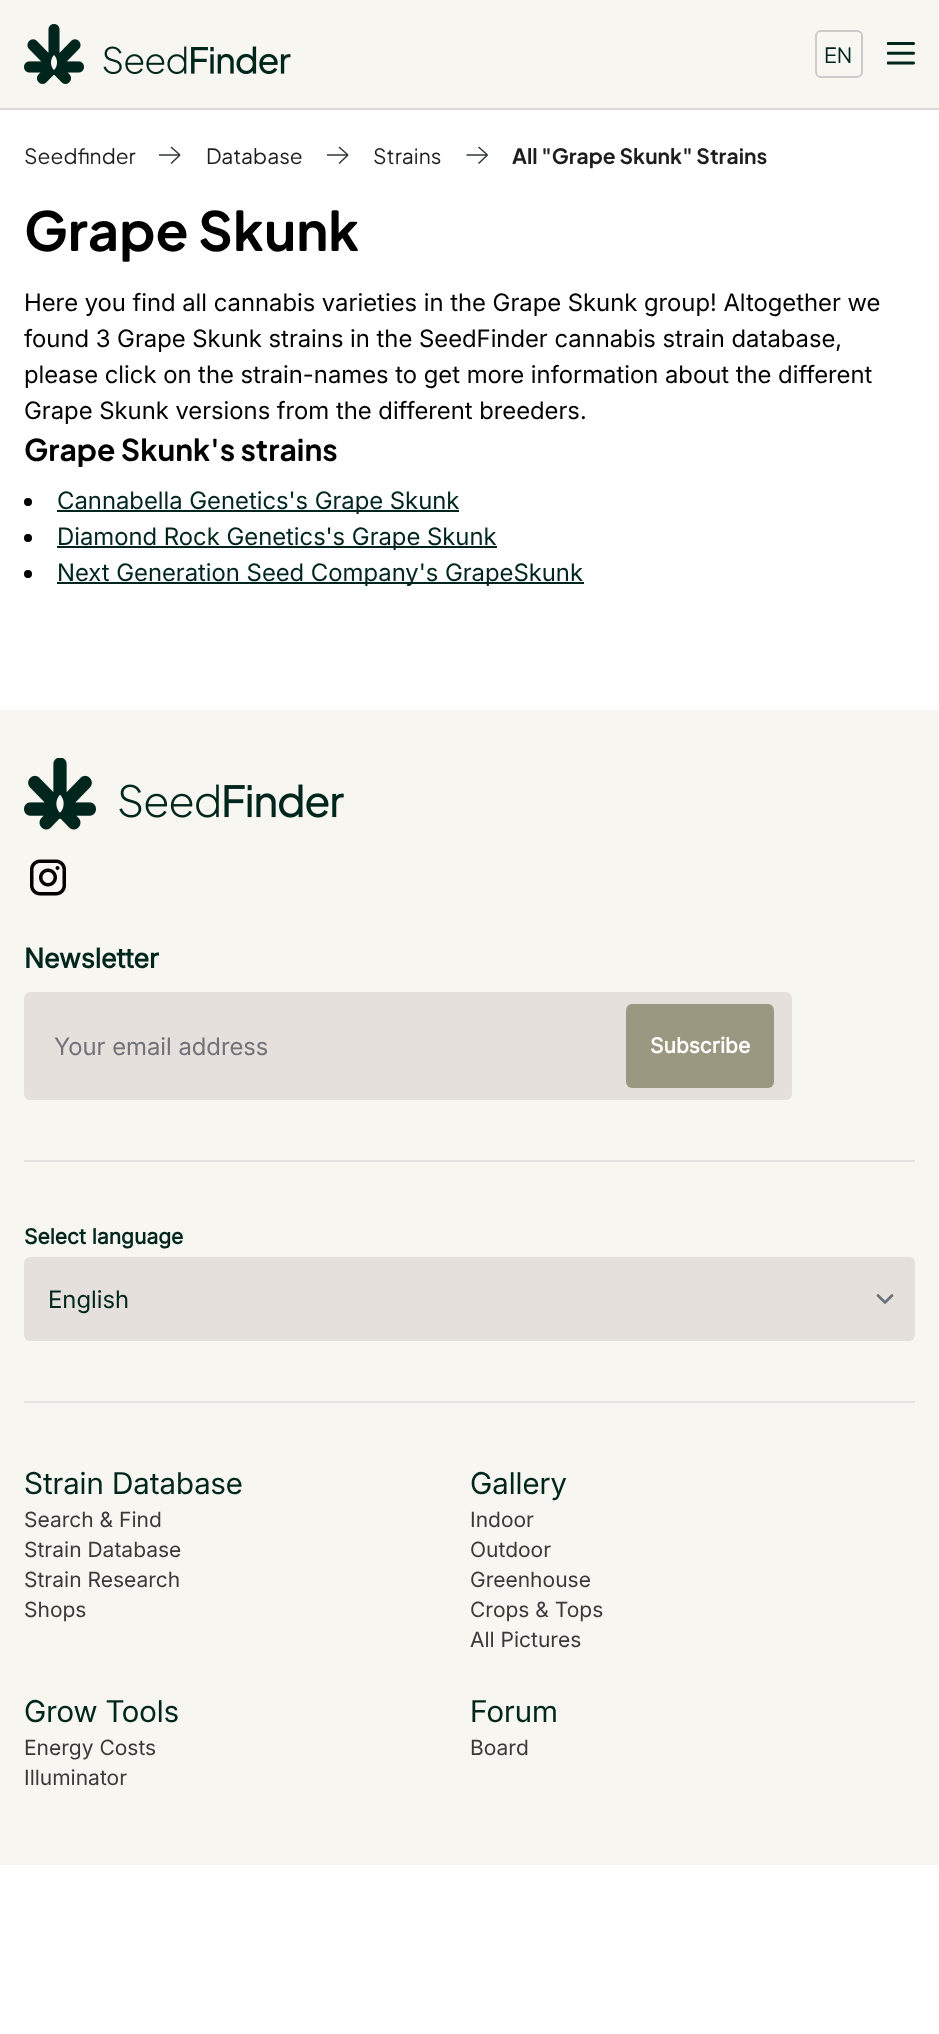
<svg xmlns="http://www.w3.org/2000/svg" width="939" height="2034">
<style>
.a{font:21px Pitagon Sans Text;fill:#00251c}
.b{font:21px Pitagon Sans Text;fill:#1e1e1e}
.c{font:bold 21px Pitagon Sans Text;fill:#1e1e1e}
.d{font:bold 54px Pitagon Sans Text;fill:#000}
.e{font:24px Inter;fill:#000}
.f{font:bold 30px Pitagon Sans Text;fill:#000}
.g{font:24px Inter;fill:#00251c}
.h{font:bold 27px Inter;fill:#00251c}
.i{font:24px Inter;fill:#71717a}
.j{font:bold 21px 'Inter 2';fill:#fff}
.k{font:bold 21px 'Inter 2';fill:#00251c}
.l{font:30px 'Inter 2';fill:#00251c}
.m{font:21px 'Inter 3';fill:#393939}
</style>
<rect width="100%" height="100%" fill="#fff"/>
<path fill="#f7f6f1" d="M0 0h939v108H0z"/>
<path fill="#dadada" d="M0 108h939v2H0z"/>
<image href="1.png" x="24" y="24" width="267" height="60"/>
<rect fill="none" stroke="#cccbcb" stroke-width="2" x="816" y="31" width="46" height="46" rx="5"/>
<image href="2.png" x="887" y="42" width="28" height="23"/>
<path fill="none" stroke="#313935" stroke-width="1.5" d="M171 163.5l9-8.5m0 0l-9-8m9 8h-21"/>
<path fill="none" stroke="#313935" stroke-width="1.5" d="M339 163.5l9-8.5m0 0l-9-8m9 8h-21"/>
<path fill="none" stroke="#313935" stroke-width="1.5" d="M478.5 163.5l9-8.5m0 0l-9-8m9 8h-21"/>
<circle fill="#000" cx="28" cy="502" r="4"/>
<path fill="#00251c" d="M57 510h402v2H57z"/>
<circle fill="#000" cx="28" cy="538" r="4"/>
<path fill="#00251c" d="M57 546h440v2H57z"/>
<circle fill="#000" cx="28" cy="574" r="4"/>
<path fill="#00251c" d="M57 582h527v2H57z"/>
<path fill="#f7f6f1" d="M0 710h939v1155H0z"/>
<image href="3.png" x="24" y="758" width="320" height="72"/>
<image href="4.png" x="30" y="859" width="36" height="37"/>
<rect fill="#e5e0db" x="24" y="992" width="768" height="108" rx="6"/>
<rect fill="#9a9881" x="626" y="1004" width="148" height="84" rx="6"/>
<path fill="#e4e4e7" d="M24 1160h891v2H24z"/>
<rect fill="#e5e0db" x="24" y="1257" width="891" height="84" rx="6"/>
<path fill="none" stroke="#6b7280" stroke-width="2.7" stroke-linecap="round" stroke-linejoin="round" d="M878 1295.5l7 7l7-7"/>
<path fill="#e4e4e7" d="M24 1401h891v2H24z"/>
<text class="a" x="824" y="63">EN</text>
<text class="b" x="24" y="164">Seedfinder</text>
<text class="b" x="206" y="164">Database</text>
<text class="b" x="373" y="164">Strains</text>
<text class="c" x="512" y="164">All "Grape Skunk" Strains</text>
<text class="d" x="24" y="251">Grape Skunk</text>
<text class="e" x="24" y="311">Here you find all cannabis varieties in the Grape Skunk group! Altogether we</text>
<text class="e" x="24" y="347">found 3 Grape Skunk strains in the SeedFinder cannabis strain database,</text>
<text class="e" x="24" y="383">please click on the strain-names to get more information about the different</text>
<text class="e" x="24" y="419">Grape Skunk versions from the different breeders.</text>
<text class="f" x="24" y="461">Grape Skunk's strains</text>
<text class="g" x="57" y="509">Cannabella Genetics's Grape Skunk</text>
<text class="g" x="57" y="545">Diamond Rock Genetics's Grape Skunk</text>
<text class="g" x="57" y="581">Next Generation Seed Company's GrapeSkunk</text>
<text class="h" x="24" y="968">Newsletter</text>
<text class="i" x="54" y="1055">Your email address</text>
<text class="j" x="650" y="1053">Subscribe</text>
<text class="k" x="24" y="1244">Select language</text>
<text class="g" x="48" y="1308">English</text>
<text class="l" x="24" y="1494">Strain Database</text>
<text class="m" x="24" y="1527">Search &amp; Find</text>
<text class="m" x="24" y="1557">Strain Database</text>
<text class="m" x="24" y="1587">Strain Research</text>
<text class="m" x="24" y="1617">Shops</text>
<text class="l" x="470" y="1494">Gallery</text>
<text class="m" x="470" y="1527">Indoor</text>
<text class="m" x="470" y="1557">Outdoor</text>
<text class="m" x="470" y="1587">Greenhouse</text>
<text class="m" x="470" y="1617">Crops &amp; Tops</text>
<text class="m" x="470" y="1647">All Pictures</text>
<text class="l" x="24" y="1722">Grow Tools</text>
<text class="m" x="24" y="1755">Energy Costs</text>
<text class="m" x="24" y="1785">Illuminator</text>
<text class="l" x="470" y="1722">Forum</text>
<text class="m" x="470" y="1755">Board</text>
</svg>
